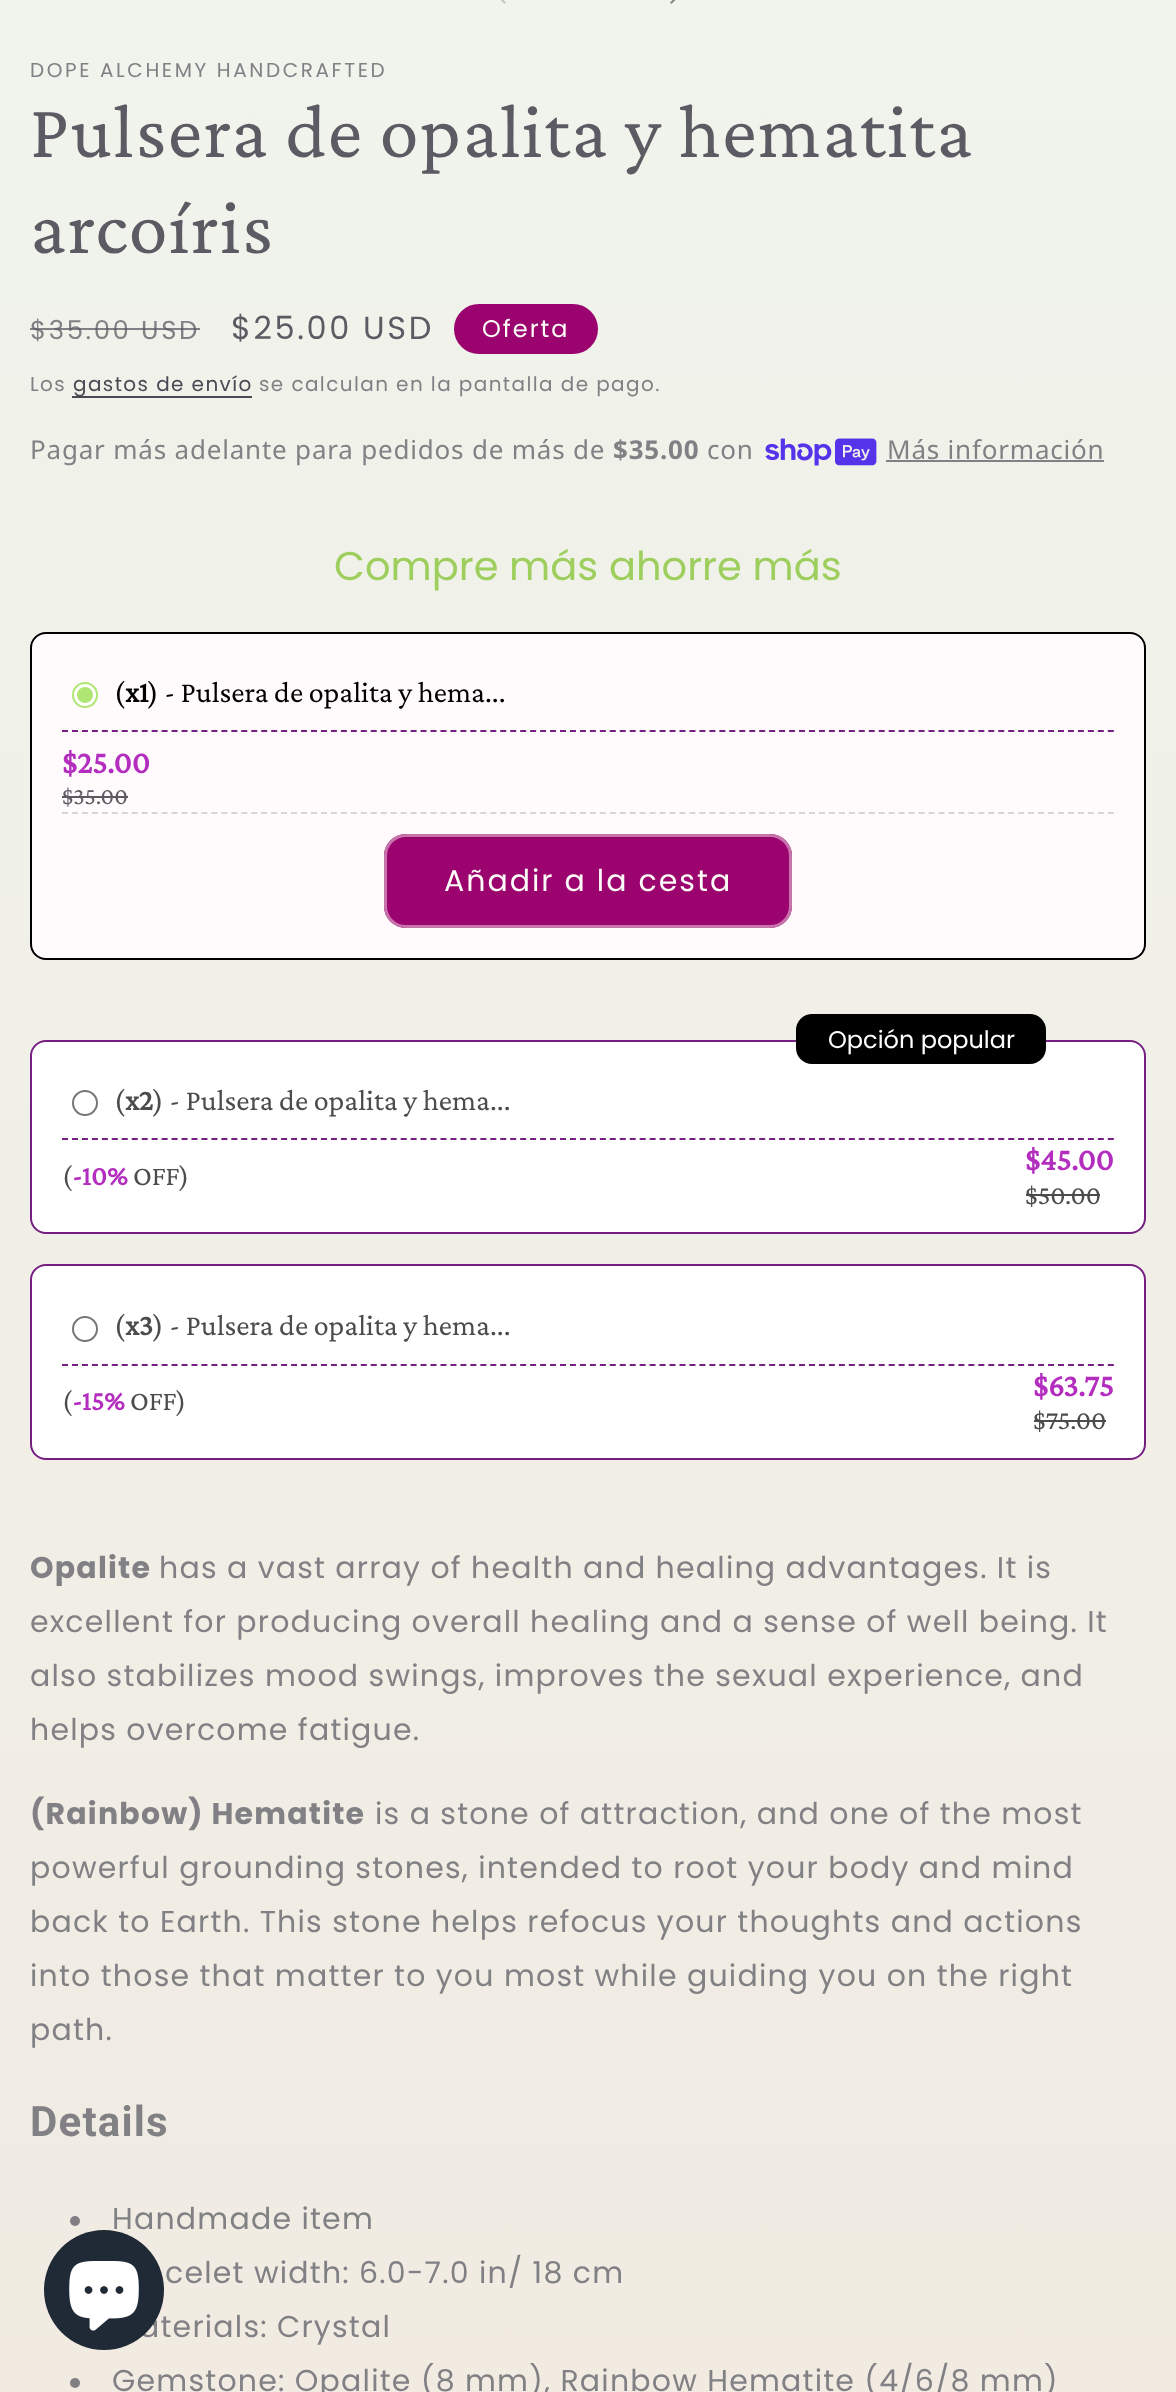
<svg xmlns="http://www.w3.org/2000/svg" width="1176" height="2392">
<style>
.a{font:20px Poppins;letter-spacing:2.6px;fill:#818185}
.b{font:78px Crimson Pro;letter-spacing:1.55px;fill:#5c5a63}
.c{font:26px Poppins;letter-spacing:2.6px;fill:#818185}
.d{font:32px Poppins;letter-spacing:2.6px;fill:#5c5a63}
.e{font:24px Poppins;letter-spacing:2px;fill:#fdfbf7}
.f{font:20px Poppins;letter-spacing:1.4px;fill:#818185}
.g{font:20px Poppins;letter-spacing:1.4px;fill:#4b4853}
.h{font:26px Noto Sans;letter-spacing:0.8px;fill:#818185}
.i{font:bold 26px Noto Sans;letter-spacing:0.8px;fill:#818185}
.j{font:40px Poppins;fill:#9ecf5e}
.k{font:30px Crimson Pro;fill:#000}
.l{font:bold 30px Crimson Pro;fill:#000}
.m{font:bold 32px Crimson Pro;fill:#b32dbf}
.n{font:24px Crimson Pro;fill:#5c5a63}
.o{font:30px Poppins;letter-spacing:2px;fill:#fdfbf7}
.p{font:24px Poppins;fill:#fff}
.q{font:30px Crimson Pro;fill:#4d4b4b}
.r{font:bold 30px Crimson Pro;fill:#4d4b4b}
.s{font:28px Crimson Pro;fill:#4d4b4b}
.t{font:bold 28px Crimson Pro;fill:#b32dbf}
.u{font:27px Crimson Pro;fill:#4d4b4b}
.v{font:bold 30px Poppins;letter-spacing:1.2px;fill:#818185}
.w{font:30px Poppins;letter-spacing:1.2px;fill:#818185}
.x{font:bold 42px Roboto;letter-spacing:1.2px;fill:#818185}
</style>
<defs>
<linearGradient id="g1" gradientUnits="userSpaceOnUse" x1="588" y1="0" x2="588" y2="2392"><stop offset="0" stop-color="#f0f4ec"/><stop offset="1" stop-color="#f1ebe2"/></linearGradient>
</defs>
<rect width="100%" height="100%" fill="#fff"/>
<path fill="url(#g1)" d="M0 0h1176v2392H0z"/>
<image href="1.png" x="501" y="0" width="5" height="4"/>
<image href="2.png" x="670" y="0" width="6" height="4"/>
<rect fill="#9b046f" stroke="#9b046f" stroke-width="2" x="455" y="305" width="142" height="48" rx="24"/>
<path fill="#4b4854" d="M72 396h180v2H72z"/>
<image href="3.png" x="765" y="438" width="112" height="28"/>
<path fill="#818085" d="M886 460h218v2H886z"/>
<rect fill="#fffafc" stroke="#000" stroke-width="2" x="31" y="633" width="1114" height="326" rx="15"/>
<circle fill="#fff" stroke="#b0e673" stroke-width="2" cx="85" cy="695" r="12"/>
<circle fill="#b0e673" cx="85" cy="695" r="8"/>
<path fill="none" stroke="#761f82" stroke-width="2" stroke-dasharray="6 3.96" d="M62 731h1052"/>
<path fill="#5c5a63" d="M62 796h66v2H62z"/>
<path fill="none" stroke="#d5d5d5" stroke-width="2" stroke-dasharray="6 3.96" d="M62 813h1052"/>
<rect fill="#9b046f" x="384" y="834" width="408" height="94" rx="22"/>
<rect fill="none" stroke="#9b046f" stroke-width="2" x="385" y="835" width="406" height="92" rx="21"/>
<rect fill="none" stroke="#fdfbf773" stroke-width="3" x="385.5" y="835.5" width="405" height="91" rx="20.5"/>
<rect fill="#fff" stroke="#761f82" stroke-width="2" x="31" y="1041" width="1114" height="192" rx="15"/>
<rect fill="#000" stroke="#000" stroke-width="2" x="797" y="1015" width="248" height="48" rx="15"/>
<circle fill="none" stroke="#767676" stroke-width="2" cx="85" cy="1103" r="12"/>
<path fill="none" stroke="#761f82" stroke-width="2" stroke-dasharray="6 3.96" d="M62 1139h1052"/>
<path fill="#4d4b4b" d="M1026 1194h74v2H1026z"/>
<rect fill="#fff" stroke="#761f82" stroke-width="2" x="31" y="1265" width="1114" height="194" rx="15"/>
<circle fill="none" stroke="#767676" stroke-width="2" cx="85" cy="1329" r="12"/>
<path fill="none" stroke="#761f82" stroke-width="2" stroke-dasharray="6 3.96" d="M62 1365h1052"/>
<path fill="#4d4b4b" d="M1034 1420h72v2H1034z"/>
<circle fill="#817f83" cx="75" cy="2221" r="5"/>
<circle fill="#817e83" cx="75" cy="2383" r="5"/>
<text class="a" x="30" y="77">DOPE ALCHEMY HANDCRAFTED</text>
<text class="b" x="30" y="157">Pulsera de opalita y hematita</text>
<text class="b" x="30" y="253">arcoíris</text>
<text class="c" x="30" y="339">$35.00 USD</text>
<path fill="#5c5a63bf" d="M30 328h170v2H30z"/>
<text class="d" x="231" y="339">$25.00 USD</text>
<text class="e" x="482" y="337">Oferta</text>
<text class="f" x="30" y="391">Los</text>
<text class="g" x="73" y="391">gastos de envío</text>
<text class="f" x="259" y="391">se calculan en la pantalla de pago.</text>
<text class="h" x="30" y="459">Pagar más adelante para pedidos de más de</text>
<text class="i" x="613" y="459">$35.00</text>
<text class="h" x="707" y="459">con</text>
<text class="h" x="887" y="459">Más información</text>
<text class="j" x="334" y="580">Compre más ahorre más</text>
<text class="k" x="114" y="702">(</text>
<text class="l" x="125" y="702">x1</text>
<text class="k" x="148" y="702">) - Pulsera de opalita y hema...</text>
<text class="m" x="62" y="773">$25.00</text>
<text class="n" x="62" y="804">$35.00</text>
<text class="o" x="444" y="891">Añadir a la cesta</text>
<text class="p" x="828" y="1048">Opción popular</text>
<text class="q" x="114" y="1110">(</text>
<text class="r" x="125" y="1110">x2</text>
<text class="q" x="153" y="1110">) - Pulsera de opalita y hema...</text>
<text class="s" x="62" y="1185">(</text>
<text class="t" x="72" y="1185">-10%</text>
<text class="s" x="133" y="1185">OFF)</text>
<text class="m" x="1025" y="1170">$45.00</text>
<text class="u" x="1025" y="1204">$50.00</text>
<text class="q" x="114" y="1335">(</text>
<text class="r" x="125" y="1335">x3</text>
<text class="q" x="153" y="1335">) - Pulsera de opalita y hema...</text>
<text class="s" x="62" y="1410">(</text>
<text class="t" x="72" y="1410">-15%</text>
<text class="s" x="130" y="1410">OFF)</text>
<text class="m" x="1033" y="1396">$63.75</text>
<text class="u" x="1033" y="1429">$75.00</text>
<text class="v" x="30" y="1578">Opalite</text>
<text class="w" x="159" y="1578">has a vast array of health and healing advantages. It is</text>
<text class="w" x="30" y="1632">excellent for producing overall healing and a sense of well being. It</text>
<text class="w" x="30" y="1686">also stabilizes mood swings, improves the sexual experience, and</text>
<text class="w" x="30" y="1740">helps overcome fatigue.</text>
<text class="v" x="30" y="1824">(Rainbow) Hematite</text>
<text class="w" x="375" y="1824">is a stone of attraction, and one of the most</text>
<text class="w" x="30" y="1878">powerful grounding stones, intended to root your body and mind</text>
<text class="w" x="30" y="1932">back to Earth. This stone helps refocus your thoughts and actions</text>
<text class="w" x="30" y="1986">into those that matter to you most while guiding you on the right</text>
<text class="w" x="30" y="2040">path.</text>
<text class="x" x="30" y="2136">Details</text>
<text class="w" x="112" y="2229">Handmade item</text>
<text class="w" x="165" y="2283">celet width: 6.0-7.0 in/ 18 cm</text>
<text class="w" x="139" y="2337">aterials: Crystal</text>
<text class="w" x="112" y="2391">Gemstone: Opalite (8 mm), Rainbow Hematite (4/6/8 mm)</text>
<circle fill="#202a36" cx="104" cy="2290" r="60"/>
<image href="4.png" x="69" y="2261" width="70" height="70"/>
</svg>
